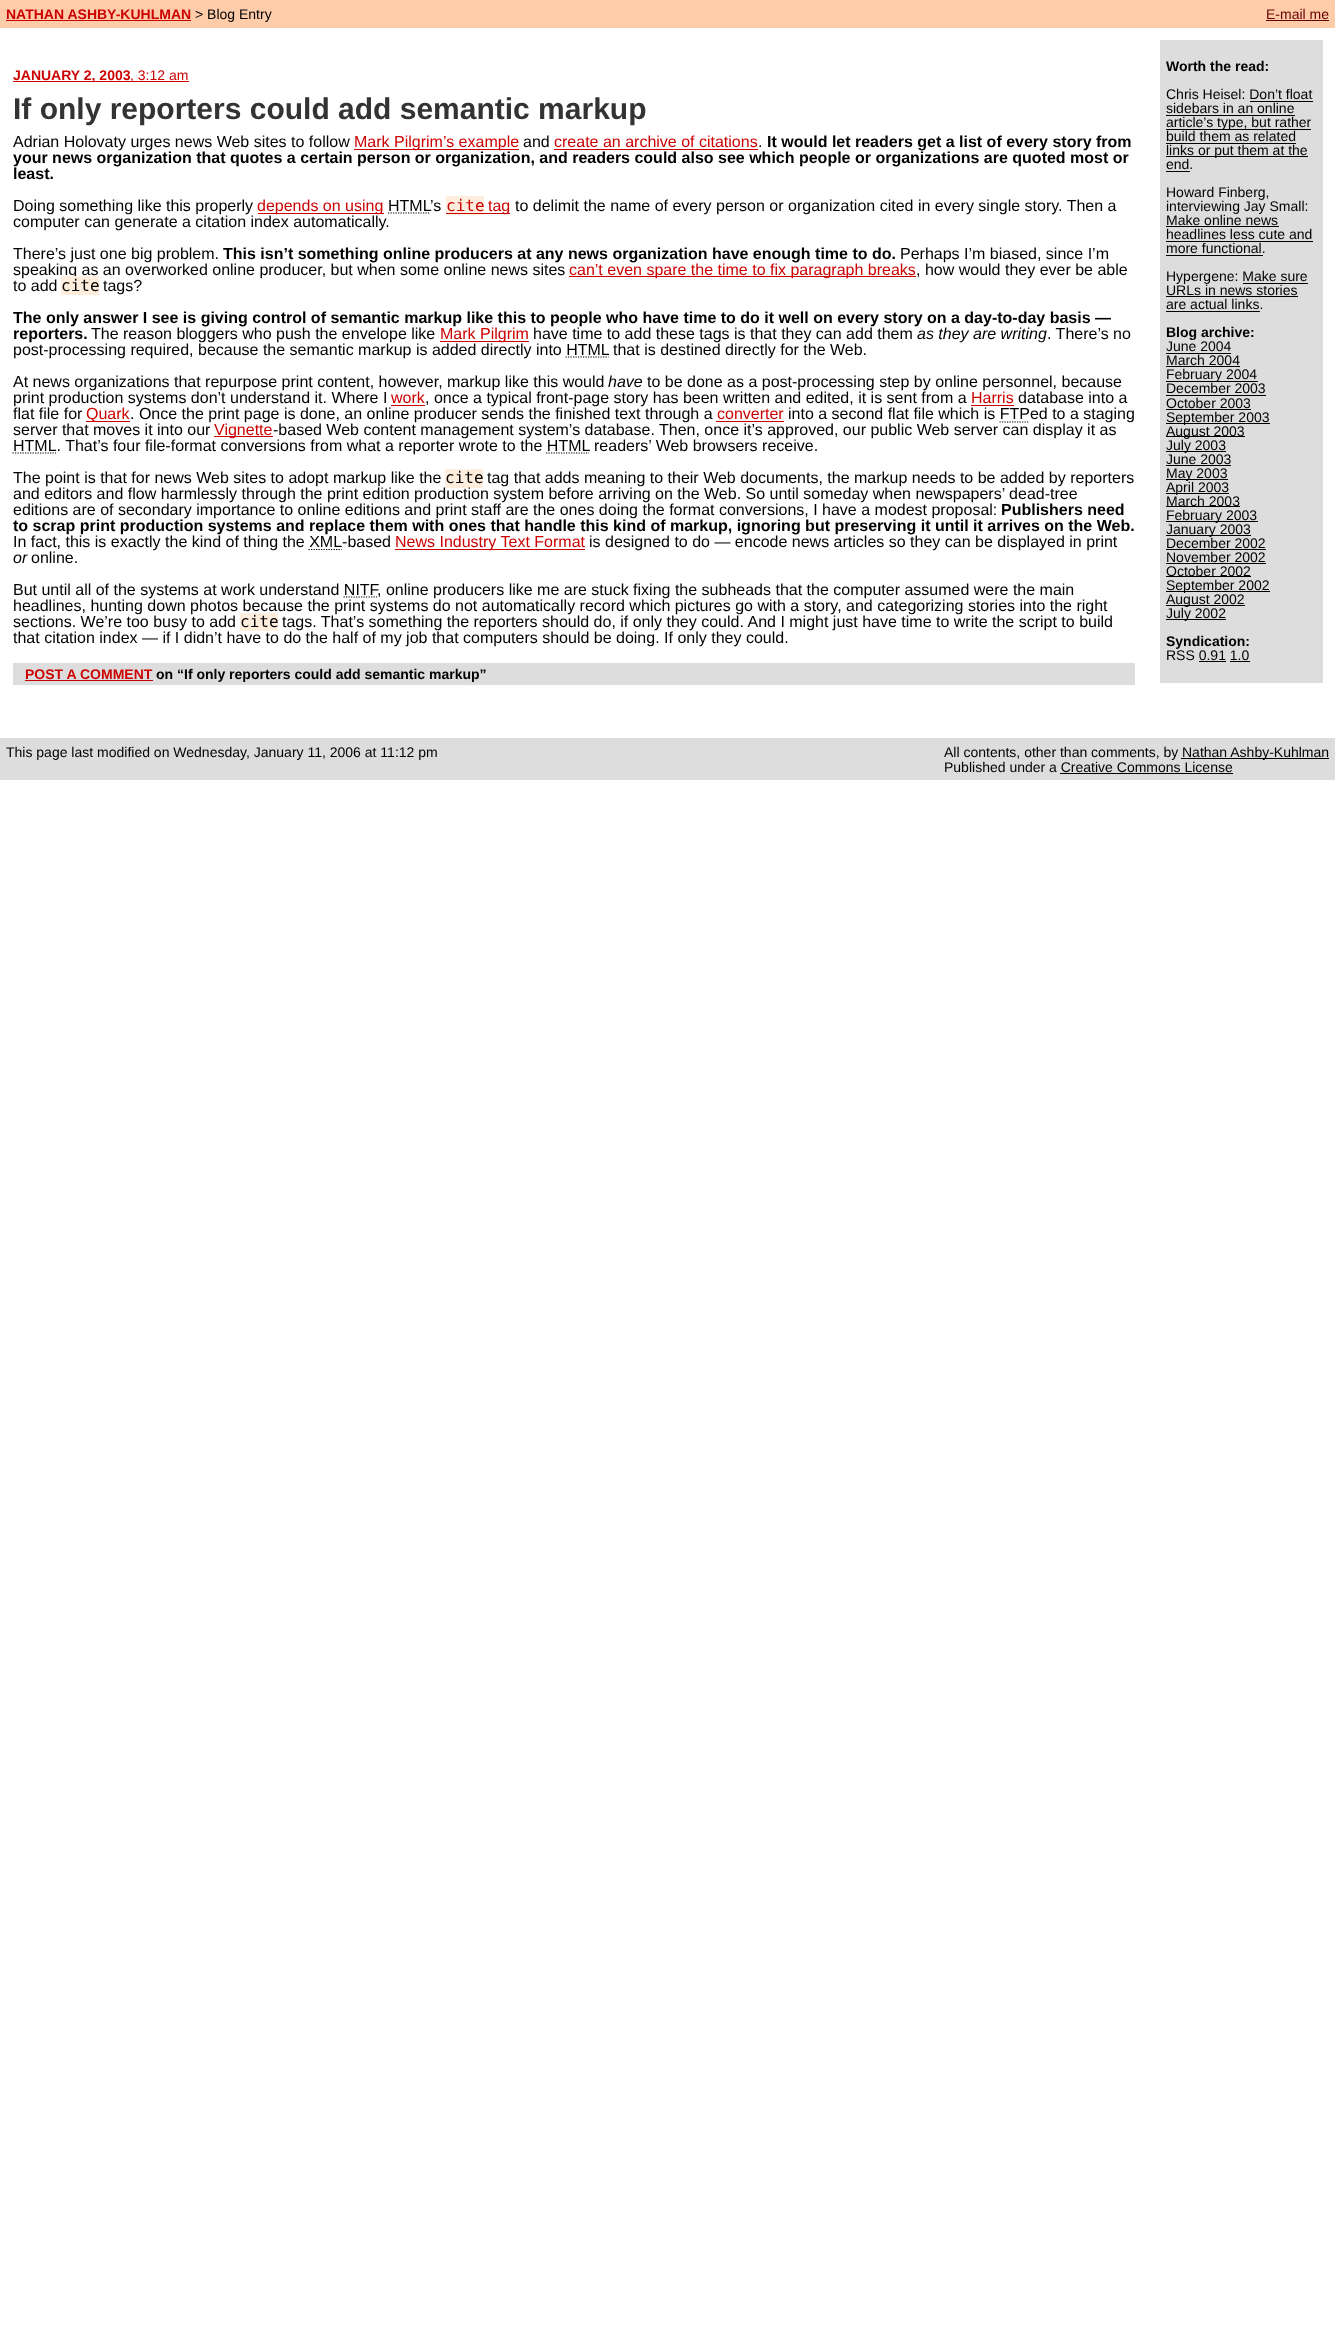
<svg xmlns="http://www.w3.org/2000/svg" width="1335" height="2343">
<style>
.a{font:bold 14px Liberation Sans;fill:#c00}
.b{font:14px Liberation Sans;fill:#000}
.c{font:14px Liberation Sans;fill:#600}
.d{font:14px Liberation Sans;fill:#c00}
.e{font:bold 30px Liberation Sans;fill:#333}
.f{font:16px Liberation Sans;fill:#000}
.g{font:16px Liberation Sans;fill:#c00}
.h{font:bold 16px Liberation Sans;fill:#000}
.i{font:16px DejaVu Sans Mono;fill:#c00}
.j{font:16px DejaVu Sans Mono;fill:#000}
.k{font:italic 16px Liberation Sans;fill:#000}
.l{font:bold 14px Liberation Sans;fill:#000}
</style>
<rect width="100%" height="100%" fill="#fff"/>
<path fill="#fca" d="M0 0h1335v28H0z"/>
<path fill="#c00" d="M6 20h185v1H6z"/>
<path fill="#600" d="M1266 20h63v1H1266z"/>
<path fill="#c00" d="M13 81h176v1H13z"/>
<path fill="#c00" d="M354 149h165v1H354z"/>
<path fill="#c00" d="M554 149h204v1H554z"/>
<path fill="#c00" d="M258 213h126v1H258z"/>
<path fill="none" stroke="#000" stroke-width="1.2" stroke-dasharray="1.25 1.25" d="M388 213h42.5"/>
<path fill="#fed" d="M446 196h38v19H446z"/>
<path fill="#c00" d="M446 213h64v1H446z"/>
<path fill="#c00" d="M569 276h347v1H569z"/>
<path fill="#c00" d="M440 341h89v1H440z"/>
<path fill="none" stroke="#000" stroke-width="1.2" stroke-dasharray="1.25 1.25" d="M565.5 357h43"/>
<path fill="#c00" d="M391 405h34v1H391z"/>
<path fill="#c00" d="M971 405h43v1H971z"/>
<path fill="#c00" d="M86 421h44v1H86z"/>
<path fill="#c00" d="M716 421h68v1H716z"/>
<path fill="none" stroke="#000" stroke-width="1.2" stroke-dasharray="1.25 1.25" d="M999.5 422h30"/>
<path fill="#c00" d="M214 436h59v1H214z"/>
<path fill="none" stroke="#000" stroke-width="1.2" stroke-dasharray="1.25 1.25" d="M12.5 453h43.5"/>
<path fill="none" stroke="#000" stroke-width="1.2" stroke-dasharray="1.25 1.25" d="M546 453h43"/>
<path fill="#fed" d="M445 469h38v19H445z"/>
<path fill="#c00" d="M395 549h190v1H395z"/>
<path fill="none" stroke="#000" stroke-width="1.2" stroke-dasharray="1.25 1.25" d="M308.5 549.5h33"/>
<path fill="none" stroke="#000" stroke-width="1.2" stroke-dasharray="1.25 1.25" d="M343.5 597h33.5"/>
<path fill="#ddd" d="M13 663h1122v22H13z"/>
<path fill="#c00" d="M25 680h128v1H25z"/>
<path fill="#ddd" d="M1160 40h163v643H1160z"/>
<path fill="#000" d="M1250 101h63v1H1250z"/>
<path fill="#000" d="M1166 115h129v1H1166z"/>
<path fill="#000" d="M1166 129h145v1H1166z"/>
<path fill="#000" d="M1166 143h130v1H1166z"/>
<path fill="#000" d="M1166 156h142v1H1166z"/>
<path fill="#000" d="M1166 171h24v1H1166z"/>
<path fill="#000" d="M1166 226h113v1H1166z"/>
<path fill="#000" d="M1166 241h147v1H1166z"/>
<path fill="#000" d="M1166 255h97v1H1166z"/>
<path fill="#000" d="M1243 283h65v1H1243z"/>
<path fill="#000" d="M1166 296h132v1H1166z"/>
<path fill="#000" d="M1166 311h94v1H1166z"/>
<path fill="#000" d="M1166 353h65v1H1166z"/>
<path fill="#000" d="M1166 366h74v1H1166z"/>
<path fill="#000" d="M1166 381h92v1H1166z"/>
<path fill="#000" d="M1166 395h100v1H1166z"/>
<path fill="#000" d="M1166 409h85v1H1166z"/>
<path fill="#000" d="M1166 423h104v1H1166z"/>
<path fill="#000" d="M1166 436h79v1H1166z"/>
<path fill="#000" d="M1166 451h60v1H1166z"/>
<path fill="#000" d="M1166 465h65v1H1166z"/>
<path fill="#000" d="M1166 479h62v1H1166z"/>
<path fill="#000" d="M1166 493h63v1H1166z"/>
<path fill="#000" d="M1166 506h74v1H1166z"/>
<path fill="#000" d="M1166 521h92v1H1166z"/>
<path fill="#000" d="M1166 535h85v1H1166z"/>
<path fill="#000" d="M1166 549h100v1H1166z"/>
<path fill="#000" d="M1166 563h100v1H1166z"/>
<path fill="#000" d="M1166 576h85v1H1166z"/>
<path fill="#000" d="M1166 591h104v1H1166z"/>
<path fill="#000" d="M1166 605h79v1H1166z"/>
<path fill="#000" d="M1166 619h60v1H1166z"/>
<path fill="#000" d="M1199 661h27v1H1199z"/>
<path fill="#000" d="M1230 661h20v1H1230z"/>
<path fill="#ddd" d="M0 738h1335v42H0z"/>
<path fill="#000" d="M1181 758h148v1H1181z"/>
<path fill="#000" d="M1060 773h173v1H1060z"/>
<text class="a" x="6" y="19">NATHAN ASHBY-KUHLMAN</text>
<text class="b" x="195" y="19">&gt; Blog Entry</text>
<text class="c" x="1266" y="19">E-mail me</text>
<text class="a" x="13" y="80">JANUARY 2, 2003</text>
<text class="d" x="130" y="80">, 3:12 am</text>
<text class="e" x="13" y="119">If only reporters could add semantic markup</text>
<text class="f" x="13" y="147">Adrian Holovaty urges news Web sites to follow</text>
<text class="g" x="354" y="147">Mark Pilgrim’s example</text>
<text class="f" x="523" y="147">and</text>
<text class="g" x="554" y="147">create an archive of citations</text>
<text class="f" x="758" y="147">.</text>
<text class="h" x="767" y="147">It would let readers get a list of every story from</text>
<text class="h" x="13" y="163">your news organization that quotes a certain person or organization, and readers could also see which people or organizations are quoted most or</text>
<text class="h" x="13" y="179">least.</text>
<text class="f" x="13" y="211">Doing something like this properly</text>
<text class="g" x="257" y="211">depends on using</text>
<text class="f" x="388" y="211">HTML</text>
<text class="f" x="430" y="211">’s</text>
<text class="i" x="446" y="211">cite</text>
<text class="g" x="488" y="211">tag</text>
<text class="f" x="515" y="211">to delimit the name of every person or organization cited in every single story. Then a</text>
<text class="f" x="13" y="227">computer can generate a citation index automatically.</text>
<text class="f" x="13" y="259">There’s just one big problem.</text>
<text class="h" x="223" y="259">This isn’t something online producers at any news organization have enough time to do.</text>
<text class="f" x="900" y="259">Perhaps I’m biased, since I’m</text>
<text class="f" x="13" y="275">speaking as an overworked online producer, but when some online news sites</text>
<text class="g" x="569" y="275">can’t even spare the time to fix paragraph breaks</text>
<text class="f" x="916" y="275">, how would they ever be able</text>
<text class="f" x="13" y="291">to add</text>
<path fill="#fed" d="M61 276h38v19H61z"/>
<text class="j" x="61" y="291">cite</text>
<text class="f" x="103" y="291">tags?</text>
<text class="h" x="13" y="323">The only answer I see is giving control of semantic markup like this to people who have time to do it well on every story on a day-to-day basis —</text>
<text class="h" x="13" y="339">reporters.</text>
<text class="f" x="91" y="339">The reason bloggers who push the envelope like</text>
<text class="g" x="440" y="339">Mark Pilgrim</text>
<text class="f" x="533" y="339">have time to add these tags is that they can add them</text>
<text class="k" x="917" y="339">as they are writing</text>
<text class="f" x="1047" y="339">. There’s no</text>
<text class="f" x="13" y="355">post-processing required, because the semantic markup is added directly into HTML</text>
<text class="f" x="613" y="355">that is destined directly for the Web.</text>
<text class="f" x="13" y="387">At news organizations that repurpose print content, however, markup like this would</text>
<text class="k" x="608" y="387">have</text>
<text class="f" x="647" y="387">to be done as a post-processing step by online personnel, because</text>
<text class="f" x="13" y="403">print production systems don’t understand it. Where I</text>
<text class="g" x="391" y="403">work</text>
<text class="f" x="425" y="403">, once a typical front-page story has been written and edited, it is sent from a</text>
<text class="g" x="971" y="403">Harris</text>
<text class="f" x="1018" y="403">database into a</text>
<text class="f" x="13" y="419">flat file for</text>
<text class="g" x="86" y="419">Quark</text>
<text class="f" x="130" y="419">. Once the print page is done, an online producer sends the finished text through a</text>
<text class="g" x="717" y="419">converter</text>
<text class="f" x="788" y="419">into a second flat file which is FTPed to a staging</text>
<text class="f" x="13" y="435">server that moves it into our</text>
<text class="g" x="214" y="435">Vignette</text>
<text class="f" x="273" y="435">-based Web content management system’s database. Then, once it’s approved, our public Web server can display it as</text>
<text class="f" x="13" y="451">HTML. That’s four file-format conversions from what a reporter wrote to the HTML</text>
<text class="f" x="594" y="451">readers’ Web browsers receive.</text>
<text class="f" x="13" y="483">The point is that for news Web sites to adopt markup like the</text>
<text class="j" x="445" y="483">cite</text>
<text class="f" x="487" y="483">tag that adds meaning to their Web documents, the markup needs to be added by reporters</text>
<text class="f" x="13" y="499">and editors and flow harmlessly through the print edition production system before arriving on the Web. So until someday when newspapers’ dead-tree</text>
<text class="f" x="13" y="515">editions are of secondary importance to online editions and print staff are the ones doing the format conversions, I have a modest proposal:</text>
<text class="h" x="1001" y="515">Publishers need</text>
<text class="h" x="13" y="531">to scrap print production systems and replace them with ones that handle this kind of markup, ignoring but preserving it until it arrives on the Web.</text>
<text class="f" x="13" y="547">In fact, this is exactly the kind of thing the XML-based</text>
<text class="g" x="395" y="547">News Industry Text Format</text>
<text class="f" x="589" y="547">is designed to do — encode news articles so they can be displayed in print</text>
<text class="k" x="13" y="563">or</text>
<text class="f" x="31" y="563">online.</text>
<text class="f" x="13" y="595">But until all of the systems at work understand NITF</text>
<text class="f" x="377" y="595">, online producers like me are stuck fixing the subheads that the computer assumed were the main</text>
<text class="f" x="13" y="611">headlines, hunting down photos because the print systems do not automatically record which pictures go with a story, and categorizing stories into the right</text>
<text class="f" x="13" y="627">sections. We’re too busy to add</text>
<path fill="#fed" d="M240 613h38v18H240z"/>
<text class="j" x="240" y="627">cite</text>
<text class="f" x="282" y="627">tags. That’s something the reporters should do, if only they could. And I might just have time to write the script to build</text>
<text class="f" x="13" y="643">that citation index — if I didn’t have to do the half of my job that computers should be doing. If only they could.</text>
<text class="a" x="25" y="679">POST A COMMENT</text>
<text class="l" x="156" y="679">on “If only reporters could add semantic markup”</text>
<text class="l" x="1166" y="71">Worth the read:</text>
<text class="b" x="1166" y="99">Chris Heisel: Don’t float</text>
<text class="b" x="1166" y="113">sidebars in an online</text>
<text class="b" x="1166" y="127">article’s type, but rather</text>
<text class="b" x="1166" y="141">build them as related</text>
<text class="b" x="1166" y="155">links or put them at the</text>
<text class="b" x="1166" y="169">end.</text>
<text class="b" x="1166" y="197">Howard Finberg,</text>
<text class="b" x="1166" y="211">interviewing Jay Small:</text>
<text class="b" x="1166" y="225">Make online news</text>
<text class="b" x="1166" y="239">headlines less cute and</text>
<text class="b" x="1166" y="253">more functional.</text>
<text class="b" x="1166" y="281">Hypergene: Make sure</text>
<text class="b" x="1166" y="295">URLs in news stories</text>
<text class="b" x="1166" y="309">are actual links.</text>
<text class="l" x="1166" y="337">Blog archive:</text>
<text class="b" x="1166" y="351">June 2004</text>
<text class="b" x="1166" y="365">March 2004</text>
<text class="b" x="1166" y="379">February 2004</text>
<text class="b" x="1166" y="393">December 2003</text>
<text class="b" x="1166" y="408">October 2003</text>
<text class="b" x="1166" y="422">September 2003</text>
<text class="b" x="1166" y="436">August 2003</text>
<text class="b" x="1166" y="450">July 2003</text>
<text class="b" x="1166" y="464">June 2003</text>
<text class="b" x="1166" y="478">May 2003</text>
<text class="b" x="1166" y="492">April 2003</text>
<text class="b" x="1166" y="506">March 2003</text>
<text class="b" x="1166" y="520">February 2003</text>
<text class="b" x="1166" y="534">January 2003</text>
<text class="b" x="1166" y="548">December 2002</text>
<text class="b" x="1166" y="562">November 2002</text>
<text class="b" x="1166" y="576">October 2002</text>
<text class="b" x="1166" y="590">September 2002</text>
<text class="b" x="1166" y="604">August 2002</text>
<text class="b" x="1166" y="618">July 2002</text>
<text class="l" x="1166" y="646">Syndication:</text>
<text class="b" x="1166" y="660">RSS 0.91 1.0</text>
<text class="b" x="6" y="757">This page last modified on Wednesday, January 11, 2006 at 11:12 pm</text>
<text class="b" x="944" y="757">All contents, other than comments, by</text>
<text class="b" x="1182" y="757">Nathan Ashby-Kuhlman</text>
<text class="b" x="944" y="772">Published under a Creative Commons License</text>
</svg>
